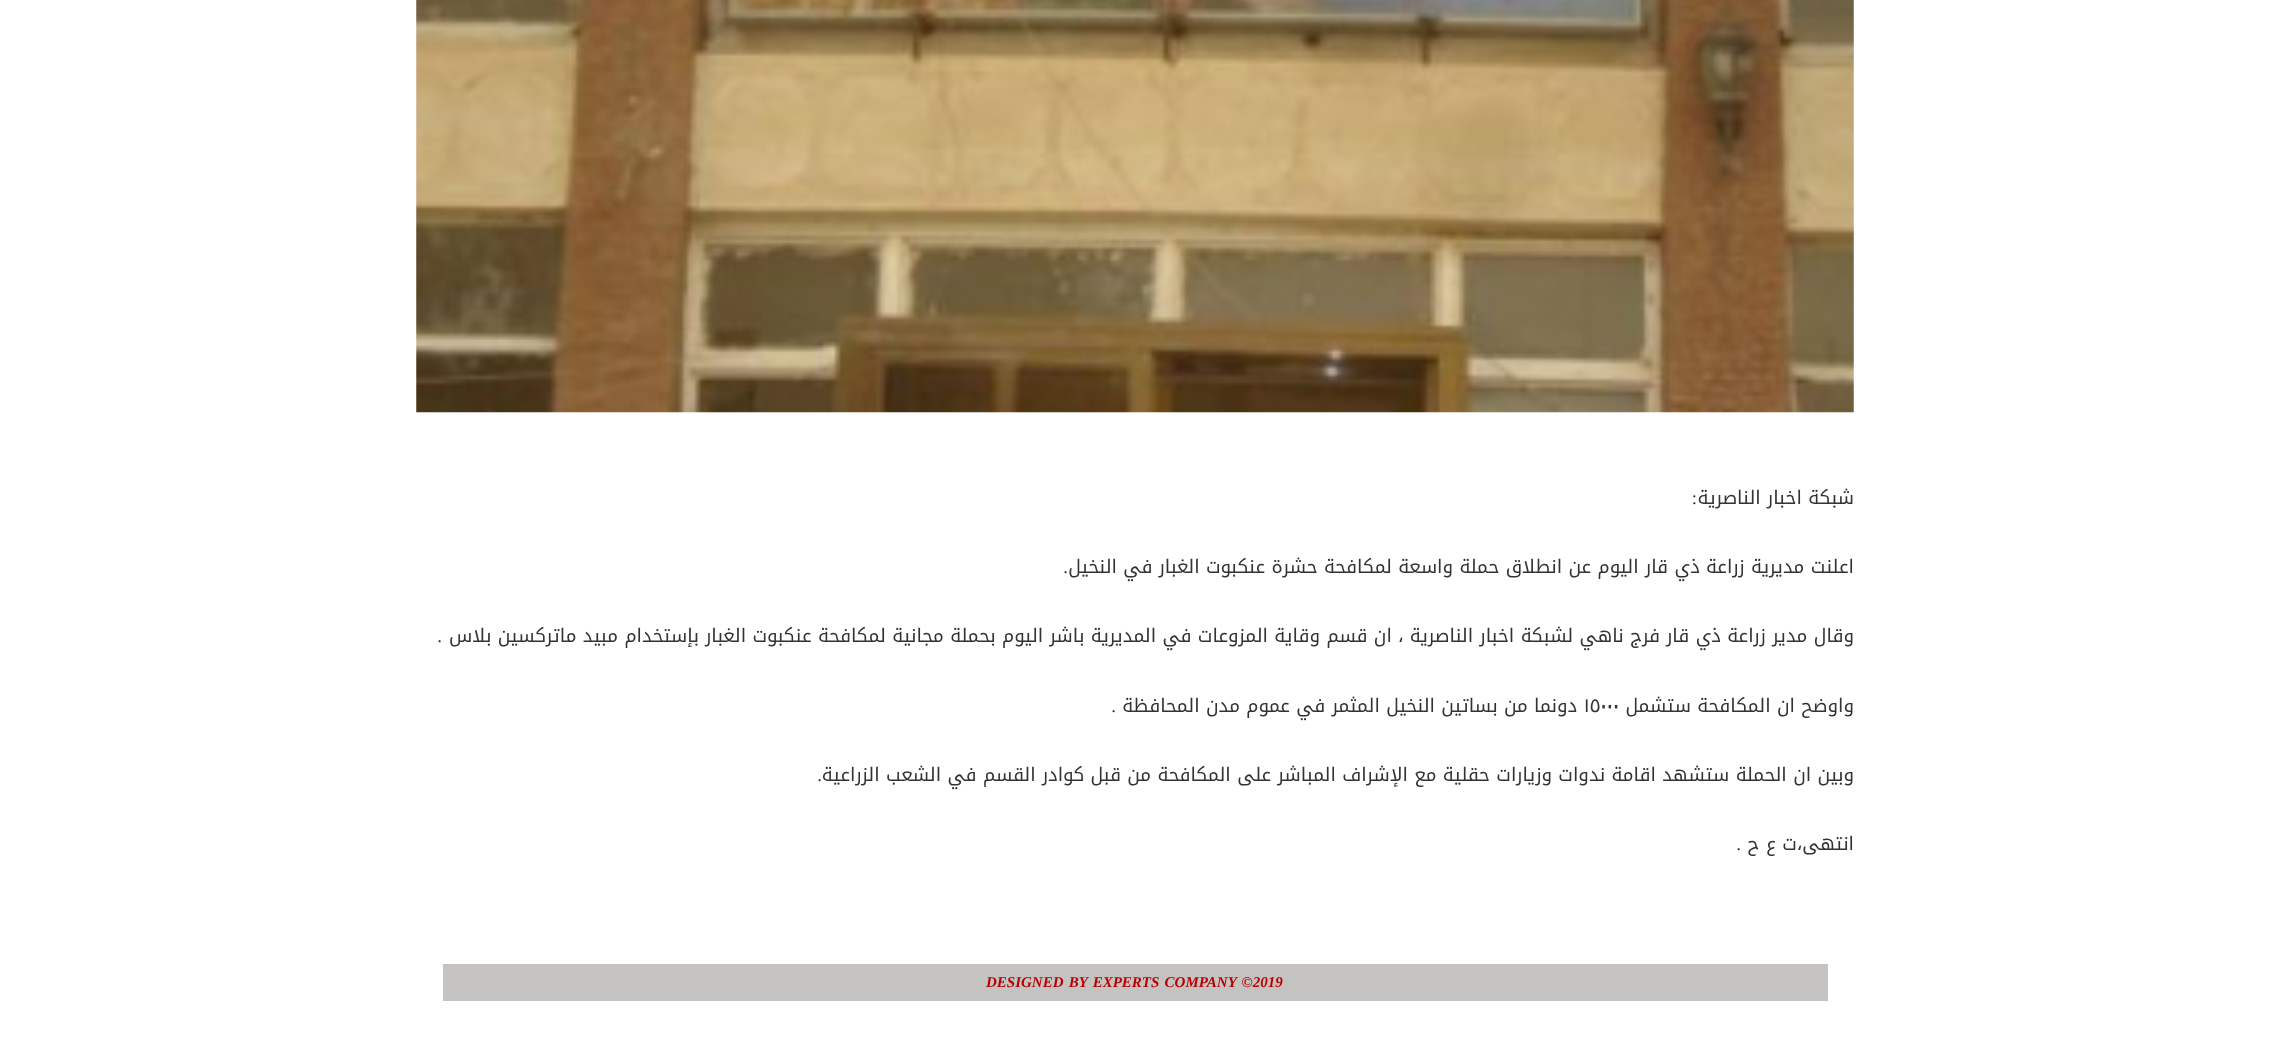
<svg xmlns="http://www.w3.org/2000/svg" width="2269" height="1043">
<style>
.a{font:18.75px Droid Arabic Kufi;direction:rtl;fill:#333}
.b{font:18.75px Liberation Serif;direction:rtl;fill:#333}
.c{font:18.75px Droid Arabic Kufi;fill:#333}
.d{font:italic bold 15px Liberation Serif;fill:#b70000}
</style>
<rect width="100%" height="100%" fill="#fff"/>
<image href="1.png" x="416" y="0" width="1438" height="413"/>
<path fill="#c5c2c2" d="M443 964h1385v37H443z"/>
<text class="a" x="1854" y="504">شبكة اخبار الناصرية</text>
<text class="b" x="1697" y="504">:</text>
<text class="a" x="1854" y="573">اعلنت مديرية زراعة ذي قار اليوم عن انطلاق حملة واسعة لمكافحة حشرة عنكبوت الغبار في النخيل</text>
<text class="b" x="1068" y="573">.</text>
<text class="a" x="1854" y="642">وقال مدير زراعة ذي قار فرج ناهي لشبكة اخبار الناصرية ، ان قسم وقاية المزوعات في المديرية باشر اليوم بحملة مجانية لمكافحة عنكبوت الغبار بإستخدام مبيد ماتركسين بلاس</text>
<text class="b" x="442" y="642">.</text>
<text class="a" x="1854" y="712">واوضح ان المكافحة ستشمل</text>
<text class="c" x="1584" y="712">١٥٠٠٠</text>
<text class="a" x="1577" y="712">دونما من بساتين النخيل المثمر في عموم مدن المحافظة</text>
<text class="b" x="1116" y="712">.</text>
<text class="a" x="1854" y="781">وبين ان الحملة ستشهد اقامة ندوات وزيارات حقلية مع الإشراف المباشر على المكافحة من قبل كوادر القسم في الشعب الزراعية</text>
<text class="b" x="822" y="781">.</text>
<text class="a" x="1854" y="850">انتهى،ت ع ح</text>
<text class="b" x="1741" y="850">.</text>
<text class="d" x="986" y="987" word-spacing="1.5">DESIGNED BY EXPERTS COMPANY ©2019</text>
</svg>
